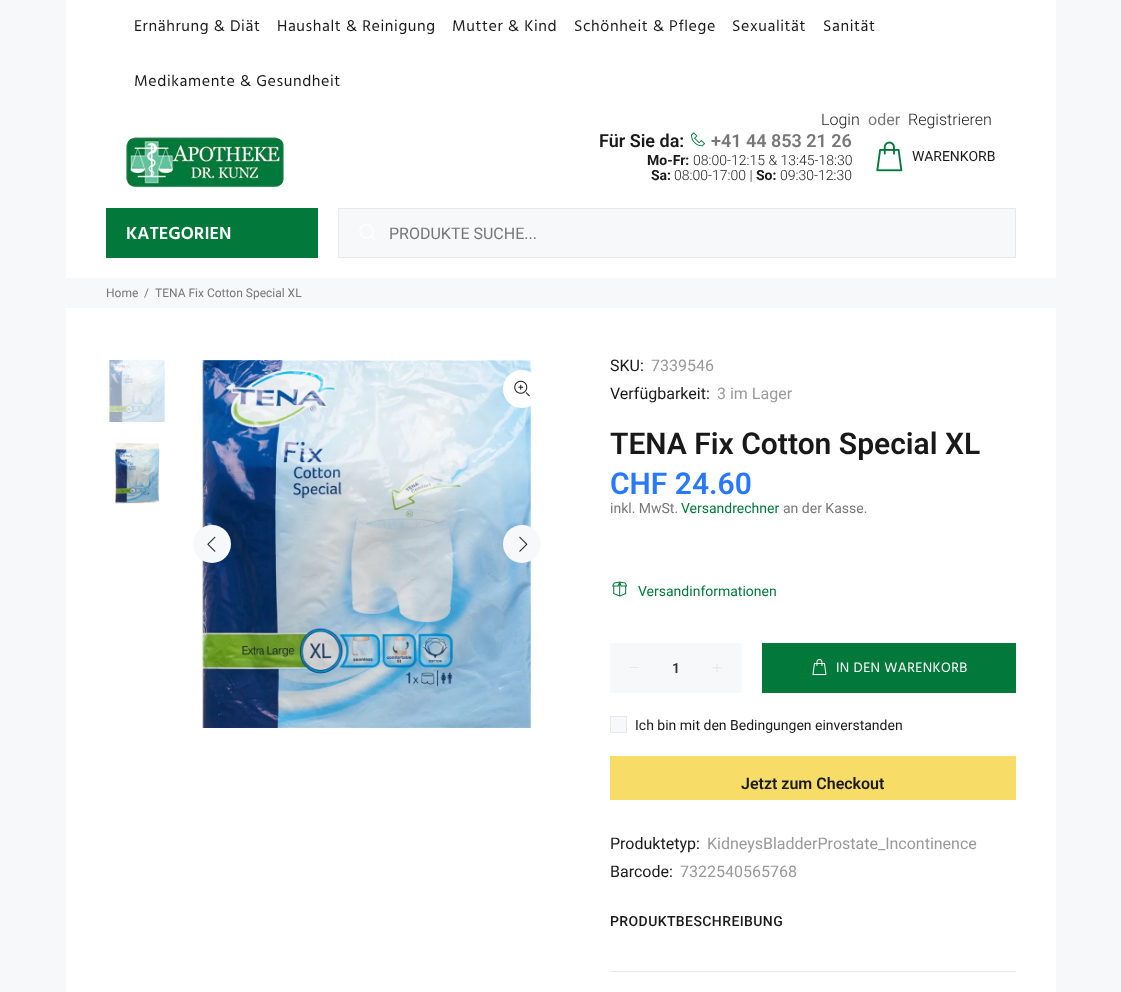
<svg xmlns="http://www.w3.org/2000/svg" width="1121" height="992">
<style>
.a{font:16px Hind;letter-spacing:0.6px;fill:#191919}
.b{font:300 16px Roboto;fill:#191919}
.c{font:16px Roboto;fill:#777}
.d{font:600 18px Roboto;fill:#191919}
.e{font:600 18px Roboto;fill:#777}
.f{font:bold 14px Roboto;fill:#191919}
.g{font:300 14px Roboto;fill:#191919}
.h{font:14px Roboto;fill:#191919}
.i{font:600 18px Hind;fill:#fff}
.j{font:12px Roboto;fill:#777}
.k{font:16px Roboto;fill:#191919}
.l{font:16px Roboto;fill:#999}
.m{font:600 30px Roboto;fill:#191919}
.n{font:600 30px Roboto;fill:#2879fe}
.o{font:14px Roboto;fill:#777}
.p{font:14px Roboto;fill:#02783b}
.q{font:600 14px Roboto;fill:#333}
.r{font:14px Hind;letter-spacing:0.4px;fill:#fff}
.s{font:600 16px Roboto;fill:#191919}
.t{font:500 14px Roboto;letter-spacing:0.4px;fill:#191919}
</style>
<rect width="100%" height="100%" fill="#f7f8fa"/>
<path fill="#fff" d="M66 0h990v992H66z"/>
<image href="1.png" x="126" y="137" width="158" height="50"/>
<image href="2.png" x="691" y="132" width="14" height="15"/>
<image href="3.png" x="876" y="141" width="27" height="31"/>
<path fill="#02783b" d="M106 208h212v50H106z"/>
<path fill="#f7f8fa" stroke="#e9e7e7" d="M338.5 208.5h677v49H338.5z"/>
<image href="4.png" x="359" y="224" width="17" height="17"/>
<path fill="#f7f8fa" d="M66 278h990v30H66z"/>
<image href="5.png" x="109" y="360" width="56" height="62"/>
<image href="6.png" x="115" y="442" width="45" height="62"/>
<image href="7.png" x="198" y="360" width="337" height="368"/>
<circle fill="#fff" cx="522" cy="389" r="19"/>
<image href="8.png" x="514" y="380" width="16" height="17"/>
<circle fill="#f7f8fa" cx="212" cy="544" r="19"/>
<image href="9.png" x="207" y="536" width="9" height="16"/>
<circle fill="#f7f8fa" cx="522" cy="544" r="19"/>
<image href="10.png" x="519" y="536" width="9" height="16"/>
<image href="11.png" x="612" y="581" width="16" height="16"/>
<path fill="#f7f8fa" d="M610 643h132v50H610z"/>
<path fill="#d8d8d8" d="M638.5 667.5v.5h-9l.5-.5z"/>
<image href="12.png" x="712" y="663" width="10" height="9"/>
<path fill="#02783b" d="M762 643h254v50H762z"/>
<image href="13.png" x="812" y="659" width="15" height="17"/>
<path fill="#f7f8fa" stroke="#e9e7e7" d="M610.5 716.5h16v16H610.5z"/>
<path fill="#f8dc68" d="M610 756h406v44H610z"/>
<path fill="#e9e7e7" d="M610 971h406v1H610z"/>
<text class="a" x="134" y="31">Ernährung &amp; Diät</text>
<text class="a" x="277" y="31">Haushalt &amp; Reinigung</text>
<text class="a" x="452" y="31">Mutter &amp; Kind</text>
<text class="a" x="574" y="31">Schönheit &amp; Pflege</text>
<text class="a" x="732" y="31">Sexualität</text>
<text class="a" x="823" y="31">Sanität</text>
<text class="a" x="134" y="86">Medikamente &amp; Gesundheit</text>
<text class="b" x="821" y="125">Login</text>
<text class="c" x="868" y="125">oder</text>
<text class="b" x="908" y="125">Registrieren</text>
<text class="d" x="599" y="147">Für Sie da:</text>
<text class="e" x="711" y="147">+41 44 853 21 26</text>
<text class="f" x="647" y="165">Mo-Fr:</text>
<text class="g" x="693" y="165">08:00-12:15 &amp; 13:45-18:30</text>
<text class="f" x="651" y="180">Sa:</text>
<text class="g" x="674" y="180">08:00-17:00 |</text>
<text class="f" x="756" y="180">So:</text>
<text class="g" x="780" y="180">09:30-12:30</text>
<text class="h" x="912" y="161">WARENKORB</text>
<text class="i" x="126" y="239">KATEGORIEN</text>
<text class="c" x="389" y="239">PRODUKTE SUCHE...</text>
<text class="j" x="106" y="297">Home</text>
<text class="j" x="144" y="297">/</text>
<text class="j" x="155" y="297">TENA Fix Cotton Special XL</text>
<text class="k" x="610" y="371">SKU:</text>
<text class="l" x="651" y="371">7339546</text>
<text class="k" x="610" y="399">Verfügbarkeit:</text>
<text class="l" x="717" y="399">3 im Lager</text>
<text class="m" x="610" y="454">TENA Fix Cotton Special XL</text>
<text class="n" x="610" y="494">CHF 24.60</text>
<text class="o" x="610" y="513">inkl. MwSt.</text>
<text class="p" x="681" y="513">Versandrechner</text>
<text class="o" x="783" y="513">an der Kasse.</text>
<text class="p" x="638" y="596">Versandinformationen</text>
<text class="q" x="672" y="673">1</text>
<text class="r" x="836" y="672">IN DEN WARENKORB</text>
<text class="h" x="635" y="730">Ich bin mit den Bedingungen einverstanden</text>
<text class="s" x="741" y="789">Jetzt zum Checkout</text>
<text class="k" x="610" y="849">Produktetyp:</text>
<text class="l" x="707" y="849">KidneysBladderProstate_Incontinence</text>
<text class="k" x="610" y="877">Barcode:</text>
<text class="l" x="680" y="877">7322540565768</text>
<text class="t" x="610" y="926">PRODUKTBESCHREIBUNG</text>
</svg>
